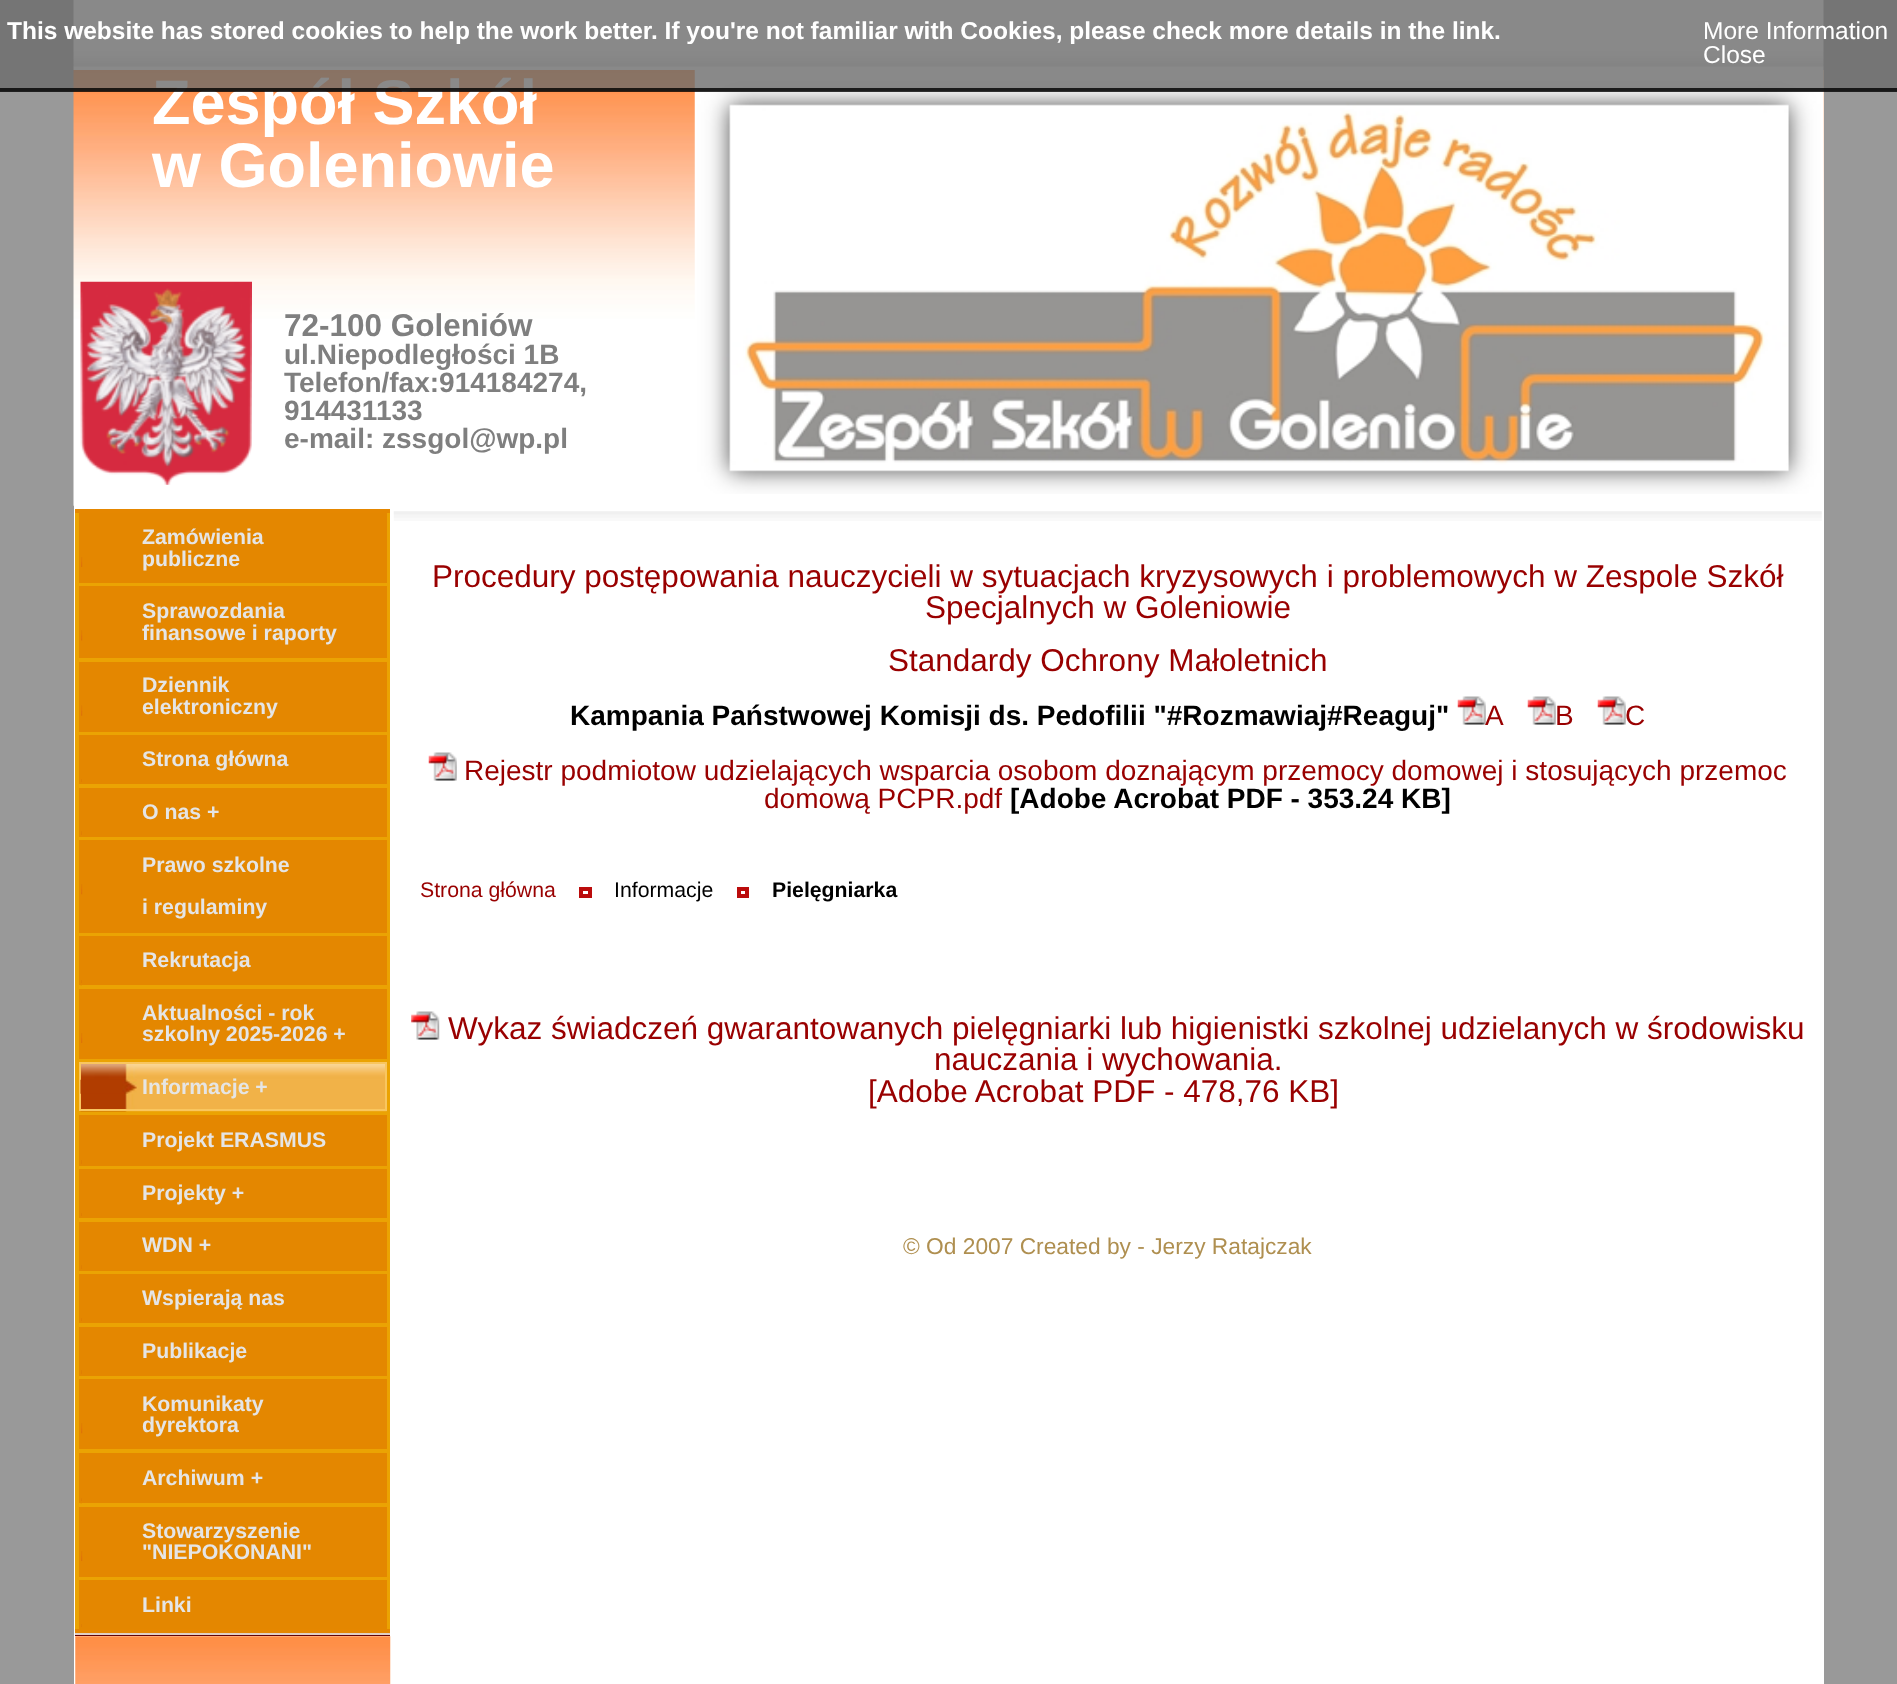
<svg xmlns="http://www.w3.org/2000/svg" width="1897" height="1684">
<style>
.a{font:bold 63px Liberation Sans;fill:#fff}
.b{font:bold 24.5px Liberation Sans;fill:#fff}
.c{font:24.5px Liberation Sans;fill:#fff}
.d{font:bold 31.5px Liberation Sans;fill:#7f7f7f}
.e{font:bold 28px Liberation Sans;fill:#7f7f7f}
.f{font:bold 21.25px Liberation Sans;fill:#e5e5e5}
.g{font:31.5px Liberation Sans;fill:#900}
.h{font:bold 28px Liberation Sans;fill:#000}
.i{font:28px Liberation Sans;fill:#900}
.j{font:21.25px Liberation Sans;fill:#900}
.k{font:21.25px Liberation Sans;fill:#000}
.l{font:bold 21.25px Liberation Sans;fill:#000}
.m{font:22.75px Liberation Sans;fill:#af8f50}
</style>
<rect width="100%" height="100%" fill="#999"/>
<path fill="#fff" d="M74 70h1750v439H74z"/>
<image href="3.png" x="73" y="70" width="1751" height="436"/>
<image href="1.png" x="80" y="281" width="172" height="204"/>
<image href="2.png" x="73" y="0" width="1751" height="70"/>
<image href="4.png" x="694" y="70" width="1130" height="424"/>
<path fill="#fff" d="M1822 506h2v1178H1822z"/>
<path fill="#fff" d="M74 506h2v1178H74z"/>
<path fill="#fff" d="M390 509h1432v1175H390z"/>
<path fill="#e58700" d="M75 509h315v1124H75z"/>
<path fill="#eba303" d="M75 513h315v1116H75z"/>
<path fill="#e48700" d="M81 515h304v66H81z"/>
<image href="5.png" x="81" y="557" width="2" height="10"/>
<path fill="none" stroke="#e48700" stroke-width="2" d="M80 514h306v68H80z"/>
<path fill="#e48700" d="M81 588h304v68H81z"/>
<image href="6.png" x="81" y="630" width="2" height="11"/>
<path fill="none" stroke="#e48700" stroke-width="2" d="M80 587h306v70H80z"/>
<path fill="#e48700" d="M81 664h304v66H81z"/>
<image href="7.png" x="81" y="705" width="2" height="11"/>
<path fill="none" stroke="#e48700" stroke-width="2" d="M80 663h306v68H80z"/>
<path fill="#e48700" d="M81 737h304v45H81z"/>
<image href="8.png" x="81" y="779" width="1" height="3"/>
<path fill="none" stroke="#e48700" stroke-width="2" d="M80 736h306v47H80z"/>
<path fill="#e48700" d="M81 790h304v45H81z"/>
<image href="9.png" x="81" y="831" width="1" height="4"/>
<path fill="none" stroke="#e48700" stroke-width="2" d="M80 789h306v47H80z"/>
<path fill="#e48700" d="M81 842h304v89H81z"/>
<image href="10.png" x="81" y="884" width="2" height="11"/>
<path fill="none" stroke="#e48700" stroke-width="2" d="M80 841h306v91H80z"/>
<path fill="#e48700" d="M81 938h304v45H81z"/>
<image href="11.png" x="80" y="980" width="2" height="6"/>
<path fill="none" stroke="#e48700" stroke-width="2" d="M80 937h306v47H80z"/>
<path fill="#e48700" d="M81 991h304v66H81z"/>
<image href="5.png" x="81" y="1033" width="2" height="10"/>
<path fill="none" stroke="#e48700" stroke-width="2" d="M80 990h306v68H80z"/>
<image href="12.png" x="80" y="1064" width="307" height="48"/>
<path fill="none" stroke="#f9c65f" stroke-width="2" d="M80 1063h306v47H80z"/>
<image href="13.png" x="80" y="1079" width="57" height="15"/>
<path fill="#e48700" d="M81 1117h304v47H81z"/>
<image href="14.png" x="81" y="1160" width="1" height="4"/>
<path fill="none" stroke="#e48700" stroke-width="2" d="M80 1116h306v49H80z"/>
<path fill="#e48700" d="M81 1171h304v45H81z"/>
<image href="8.png" x="81" y="1213" width="1" height="3"/>
<path fill="none" stroke="#e48700" stroke-width="2" d="M80 1170h306v47H80z"/>
<path fill="#e48700" d="M81 1224h304v45H81z"/>
<image href="9.png" x="81" y="1265" width="1" height="4"/>
<path fill="none" stroke="#e48700" stroke-width="2" d="M80 1223h306v47H80z"/>
<path fill="#e48700" d="M81 1276h304v45H81z"/>
<image href="8.png" x="81" y="1318" width="1" height="3"/>
<path fill="none" stroke="#e48700" stroke-width="2" d="M80 1275h306v47H80z"/>
<path fill="#e48700" d="M81 1329h304v45H81z"/>
<image href="9.png" x="81" y="1370" width="1" height="4"/>
<path fill="none" stroke="#e48700" stroke-width="2" d="M80 1328h306v47H80z"/>
<path fill="#e48700" d="M81 1381h304v66H81z"/>
<image href="10.png" x="81" y="1423" width="2" height="11"/>
<path fill="none" stroke="#e48700" stroke-width="2" d="M80 1380h306v68H80z"/>
<path fill="#e48700" d="M81 1455h304v46H81z"/>
<image href="15.png" x="80" y="1498" width="2" height="6"/>
<path fill="none" stroke="#e48700" stroke-width="2" d="M80 1454h306v48H80z"/>
<path fill="#e48700" d="M81 1509h304v66H81z"/>
<image href="5.png" x="81" y="1551" width="2" height="10"/>
<path fill="none" stroke="#e48700" stroke-width="2" d="M80 1508h306v68H80z"/>
<path fill="#e48700" d="M81 1582h304v45H81z"/>
<image href="16.png" x="81" y="1624" width="1" height="3"/>
<path fill="none" stroke="#e48700" stroke-width="2" d="M80 1581h306v47H80z"/>
<path fill="#e0cfc5" d="M75 1633h315v2H75z"/>
<path fill="#650304" d="M75 1635h315v1H75z"/>
<path fill="#fff" d="M76 1636h314v48H76z"/>
<image href="17.png" x="75" y="1636" width="316" height="48"/>
<image href="18.png" x="393" y="511" width="1429" height="10"/>
<image href="19.png" x="1457" y="696" width="29" height="29"/>
<image href="20.png" x="1527" y="696" width="29" height="29"/>
<image href="19.png" x="1597" y="696" width="29" height="29"/>
<image href="20.png" x="428" y="752" width="29" height="29"/>
<path fill="none" stroke="#bb0c0c" stroke-width="4" d="M581 889h9v7H581z"/>
<path fill="none" stroke="#bb0c0c" stroke-width="4" d="M739 889h8v7H739z"/>
<image href="21.png" x="411" y="1011" width="29" height="29"/>
<text class="a" x="152" y="124">Zespół Szkół</text>
<path fill="#6c6c6ccc" d="M0 0h1897v91H0z"/>
<text class="b" x="7" y="39">This website has stored cookies to help the work better. If you're not familiar with Cookies, please check more details in the link.</text>
<text class="c" x="1703" y="63">Close</text>
<text class="c" x="1703" y="39">More Information</text>
<path fill="#000000cc" d="M0 88h1897v4H0z"/>
<text class="a" x="152" y="187">w Goleniowie</text>
<text class="d" x="284" y="336">72-100 Goleniów</text>
<text class="e" x="284" y="364">ul.Niepodległości 1B</text>
<text class="e" x="284" y="392">Telefon/fax:914184274,</text>
<text class="e" x="284" y="420">914431133</text>
<text class="e" x="284" y="448">e-mail: zssgol@wp.pl</text>
<text class="f" x="142" y="544">Zamówienia</text>
<text class="f" x="142" y="566">publiczne</text>
<text class="f" x="142" y="618">Sprawozdania</text>
<text class="f" x="142" y="640">finansowe i raporty</text>
<text class="f" x="142" y="692">Dziennik</text>
<text class="f" x="142" y="714">elektroniczny</text>
<text class="f" x="142" y="766">Strona główna</text>
<text class="f" x="142" y="819">O nas +</text>
<text class="f" x="142" y="872">Prawo szkolne</text>
<text class="f" x="142" y="914">i regulaminy</text>
<text class="f" x="142" y="967">Rekrutacja</text>
<text class="f" x="142" y="1020">Aktualności - rok</text>
<text class="f" x="142" y="1041">szkolny 2025-2026 +</text>
<text class="f" x="142" y="1094">Informacje +</text>
<text class="f" x="142" y="1147">Projekt ERASMUS</text>
<text class="f" x="142" y="1200">Projekty +</text>
<text class="f" x="142" y="1252">WDN +</text>
<text class="f" x="142" y="1305">Wspierają nas</text>
<text class="f" x="142" y="1358">Publikacje</text>
<text class="f" x="142" y="1411">Komunikaty</text>
<text class="f" x="142" y="1432">dyrektora</text>
<text class="f" x="142" y="1485">Archiwum +</text>
<text class="f" x="142" y="1538">Stowarzyszenie</text>
<text class="f" x="142" y="1559">"NIEPOKONANI"</text>
<text class="f" x="142" y="1612">Linki</text>
<text class="g" x="432" y="587">Procedury postępowania nauczycieli w sytuacjach kryzysowych i problemowych w Zespole Szkół</text>
<text class="g" x="925" y="618">Specjalnych w Goleniowie</text>
<text class="g" x="888" y="671">Standardy Ochrony Małoletnich</text>
<text class="h" x="570" y="725">Kampania Państwowej Komisji ds. Pedofilii "#Rozmawiaj#Reaguj"</text>
<text class="i" x="1485" y="725">A</text>
<text class="i" x="1555" y="725">B</text>
<text class="i" x="1625" y="725">C</text>
<text class="i" x="464" y="780">Rejestr podmiotow udzielających wsparcia osobom doznającym przemocy domowej i stosujących przemoc</text>
<text class="i" x="764" y="808">domową PCPR.pdf</text>
<text class="h" x="1010" y="808">[Adobe Acrobat PDF - 353.24 KB]</text>
<text class="j" x="420" y="897">Strona główna</text>
<text class="k" x="614" y="897">Informacje</text>
<text class="l" x="772" y="897">Pielęgniarka</text>
<text class="g" x="448" y="1039">Wykaz świadczeń gwarantowanych pielęgniarki lub higienistki szkolnej udzielanych w środowisku</text>
<text class="g" x="934" y="1070">nauczania i wychowania.</text>
<text class="g" x="868" y="1102">[Adobe Acrobat PDF - 478,76 KB]</text>
<text class="m" x="903" y="1254">© Od 2007 Created by - Jerzy Ratajczak</text>
</svg>
